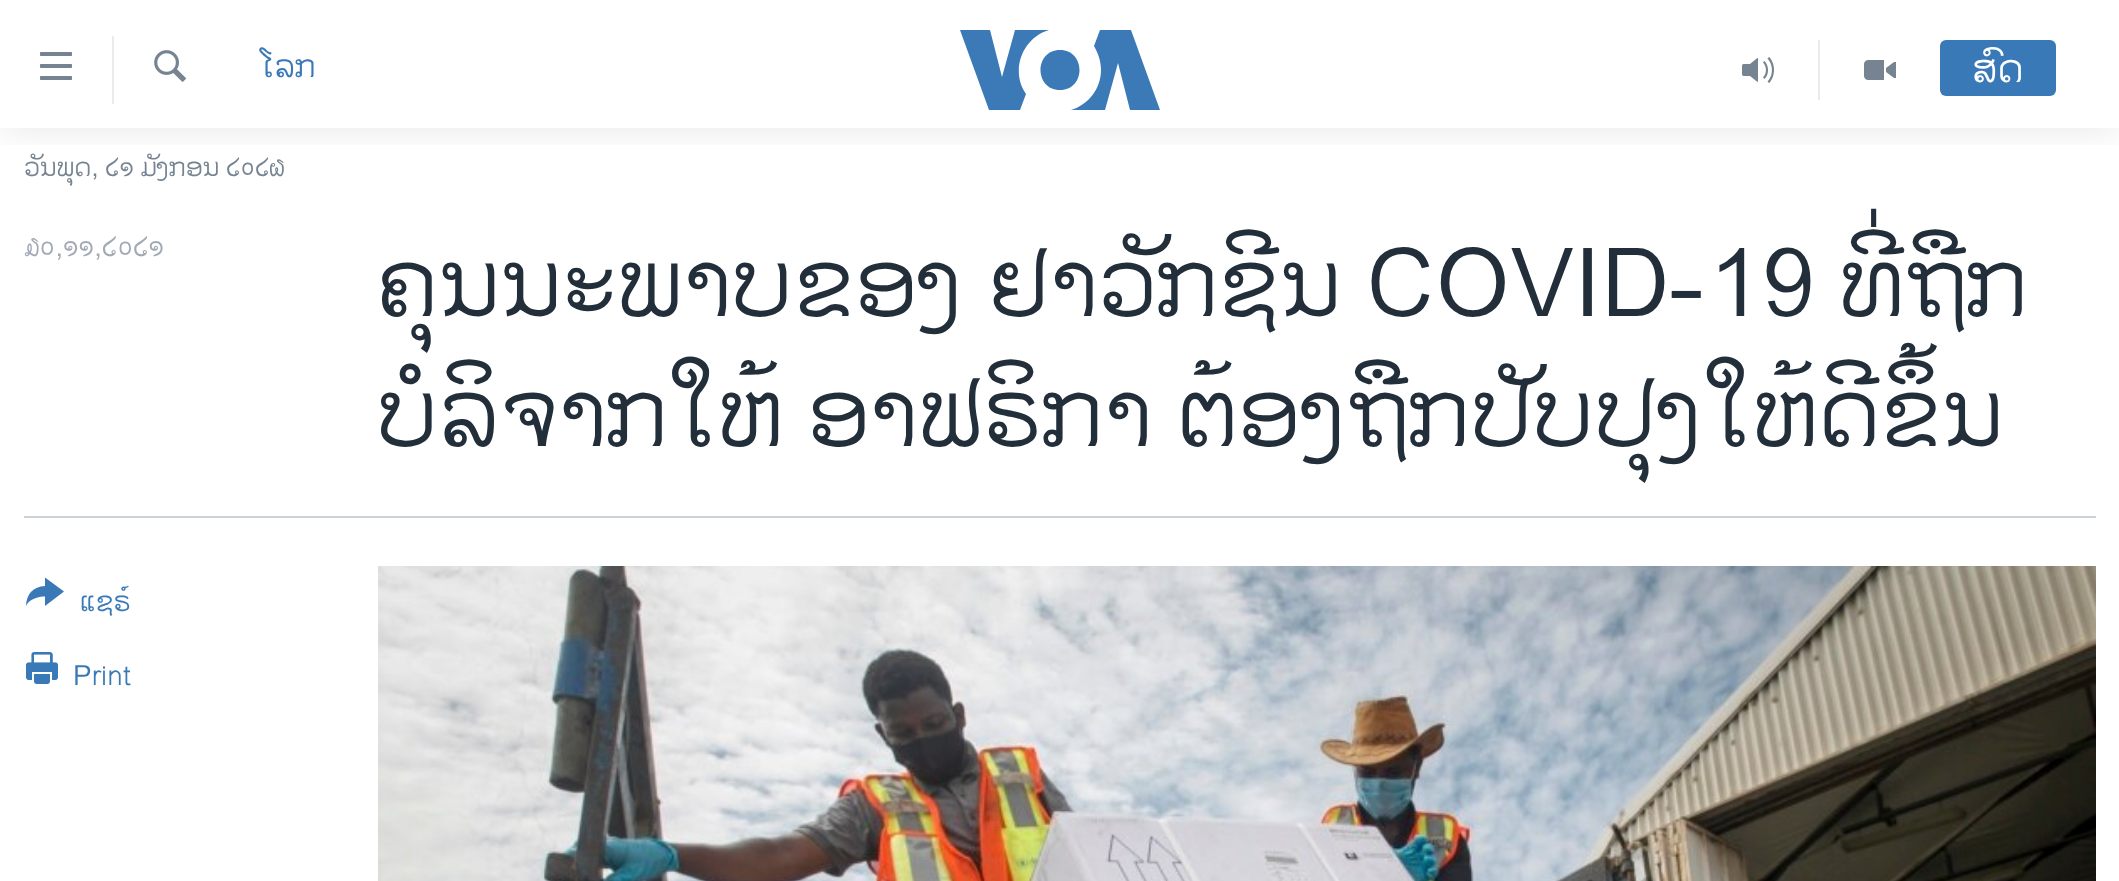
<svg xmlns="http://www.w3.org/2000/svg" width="2119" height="881">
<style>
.a{font:32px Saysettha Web;fill:#3a79b7}
.b{font:40px Saysettha Web;fill:#fff}
.c{font:26px Saysettha Web;fill:#768492}
.d{font:28px Saysettha Web;fill:#a1aab4}
.e{font:96px Saysettha Web;fill:#222f3a}
.f{font:28px Saysettha Web;fill:#3a79b7}
</style>
<defs>
<clipPath id="clip1"><path d="M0 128h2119v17H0z"/></clipPath>
</defs>
<rect width="100%" height="100%" fill="#fff"/>
<g clip-path="url(#clip1)">
<path fill="#0000001a" filter="blur(20px)" d="M0 0h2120v128H0z"/>
</g>
<image href="1.png" x="40" y="52" width="32" height="28"/>
<path fill="#ebebeb" d="M112 36h2v68H112z"/>
<image href="2.png" x="154" y="50" width="32" height="32"/>
<path fill="#3b79b7" d="M1026 94l-6 16h-31l-29-80h30l12 47l13-47h34c-27 8-39 41-23 64zm34-44c-26 0-26 40 0 40c26 0 26-40 0-40zm41 20c0 19-13 35-30 40h34l13-47l12 47h30l-29-80h-31l-6 16c4 7 7 15 7 24z"/>
<path fill="#ebebeb" d="M1818 40h2v60H1818z"/>
<image href="3.png" x="1742" y="57" width="32" height="26"/>
<image href="4.png" x="1864" y="60" width="32" height="20"/>
<rect fill="#3a79b7" x="1940" y="40" width="116" height="56" rx="6"/>
<path fill="#cbd1d6" d="M24 516h2072v2H24z"/>
<path fill="#3a79b7" d="M26 606c.5-12 7-19.5 19-20v-8.5l19 14l-19 14.5v-9.5c-7 0-16 2.5-19 9.5z"/>
<image href="5.png" x="26" y="652" width="32" height="32"/>
<image href="6.png" x="378" y="566" width="1718" height="315"/>
<text class="a" x="258" y="77">ໂລກ</text>
<text class="b" x="1972" y="82">ສົດ</text>
<text class="c" x="24" y="176">ວັນພຸດ, ໒໑ ມັງກອນ ໒໐໒໖</text>
<text class="d" x="24" y="256">໓໐,໑໑,໒໐໒໑</text>
<text class="e" x="377" y="316">ຄຸນນະພາບຂອງ ຢາວັກຊີນ COVID-19 ທີ່ຖືກ</text>
<text class="e" x="377" y="446">ບໍລິຈາກໃຫ້ ອາຟຣິກາ ຕ້ອງຖືກປັບປຸງໃຫ້ດີຂຶ້ນ</text>
<text class="f" x="79" y="611">ແຊຣ໌</text>
<text class="f" x="73" y="685">Print</text>
</svg>
